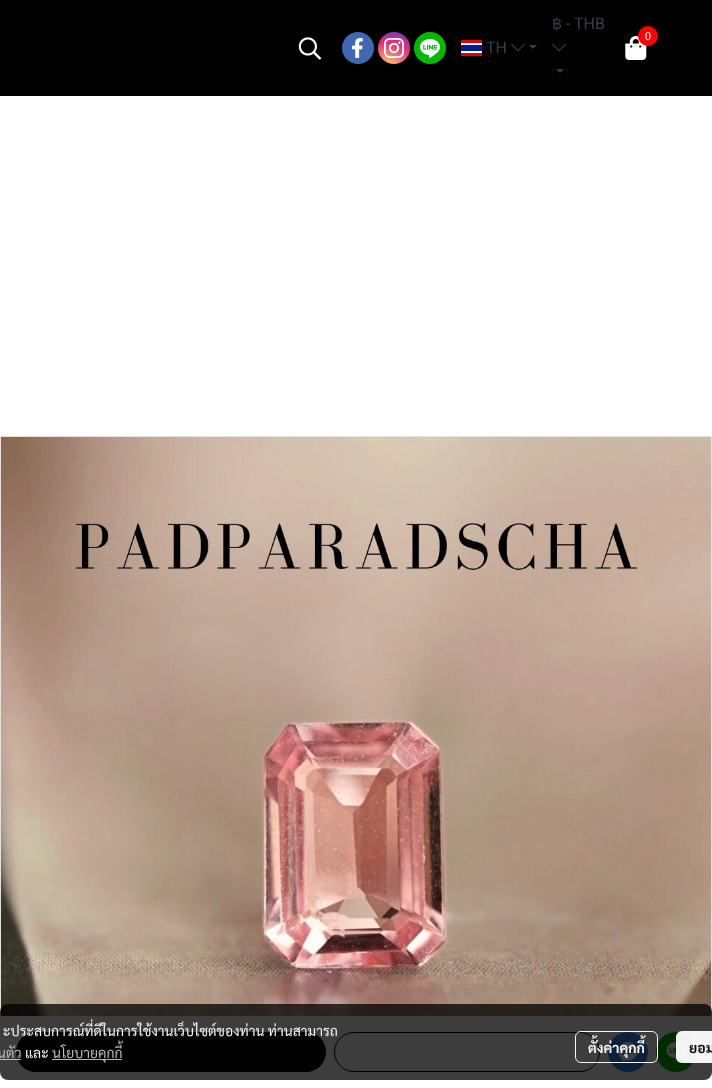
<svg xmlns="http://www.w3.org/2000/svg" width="712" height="1088">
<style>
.a{font:16px DejaVu Sans;fill:#373e44}
.b{font:16px Roboto;fill:#373e44}
.c{font:12px Liberation Serif;fill:#fff}
.d{font:14px Sarabun;fill:#f4f4f4}
.e{font:14px Sarabun;fill:#bbb}
.f{font:bold 14px Sarabun;fill:#f4f4f4}
.g{font:bold 14px Sarabun;fill:#0c0c0c}
</style>
<rect width="100%" height="100%" fill="#fff"/>
<path fill="#000" d="M0 0h712v96H0z"/>
<image href="1.png" x="552" y="43" width="14" height="9"/>
<path fill="#373e44" d="M556 69h8l-4 4z"/>
<image href="2.png" x="298" y="37" width="24" height="23"/>
<image href="3.png" x="342" y="32" width="32" height="32"/>
<image href="4.png" x="378" y="32" width="32" height="32"/>
<image href="5.png" x="414" y="32" width="32" height="32"/>
<path fill="#fff" d="M461 43h21v10H461z"/>
<path fill="#001b9a" d="M461 45h21v6H461z"/>
<path fill="#e70000" d="M461 40h21v3H461z"/>
<path fill="#e70000" d="M461 53h21v3H461z"/>
<image href="1.png" x="511" y="43" width="14" height="9"/>
<path fill="#373e44" d="M529 45h8l-4 4z"/>
<image href="6.png" x="625" y="36" width="22" height="24"/>
<circle fill="#f00" cx="648" cy="36" r="10"/>
<image href="7.png" x="1" y="437" width="710" height="579"/>
<path fill="none" stroke="#dee3e6" d="M0.5 436.5h711v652H0.5z"/>
<path fill="#fff" d="M0 1016h712v72H0z"/>
<rect fill="#000" x="16" y="1032" width="310" height="40" rx="20"/>
<rect fill="none" stroke="#000" x="334.5" y="1032.5" width="265" height="39" rx="19.5"/>
<circle fill="#3885f5" cx="628" cy="1052" r="20"/>
<image href="8.png" x="618" y="1042" width="20" height="20"/>
<circle fill="#00b800" cx="676" cy="1052" r="20"/>
<image href="9.png" x="666" y="1042" width="20" height="20"/>
<rect fill="#000000c2" y="1004" width="712" height="76" rx="8"/>
<path fill="#c2c2c2f2" d="M0 1059h21v1H0z"/>
<path fill="#b8b8b8" d="M52 1059h70v1H52z"/>
<rect fill="none" stroke="#fffffff2" x="575.5" y="1031.5" width="82" height="31" rx="5.5"/>
<rect fill="#fffffff2" x="676" y="1031" width="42" height="32" rx="6"/>
<text class="a" x="552" y="29">฿</text>
<text class="b" x="566" y="29">-</text>
<text class="b" x="574" y="29">THB</text>
<text class="b" x="486" y="53">TH</text>
<text class="c" x="645" y="40">0</text>
<text class="d" x="3" y="1036">ะประสบการณ์ที่ดีในการใช้งานเว็บไซต์ของท่าน ท่านสามารถ</text>
<text class="e" x="-3" y="1058">นตัว</text>
<text class="d" x="25" y="1058">และ</text>
<text class="e" x="52" y="1058">นโยบายคุกกี้</text>
<text class="f" x="588" y="1053">ตั้งค่าคุกกี้</text>
<text class="g" x="689" y="1053">ยอม</text>
</svg>
